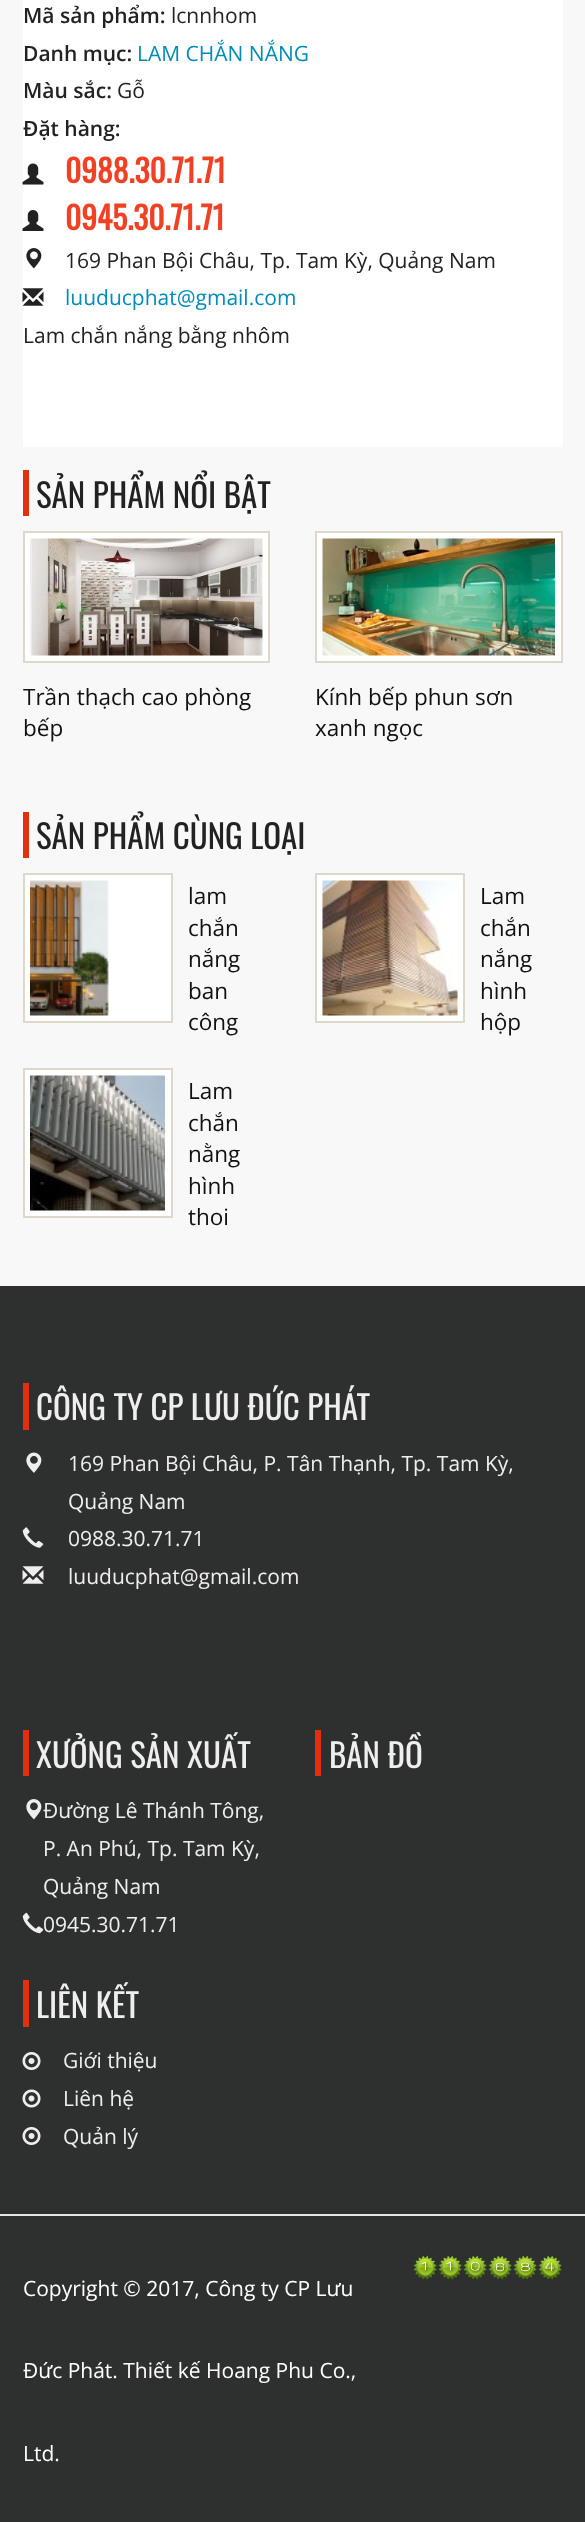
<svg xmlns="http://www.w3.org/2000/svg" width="585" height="2522">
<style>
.a{font:600 21px Open Sans;fill:#222}
.b{font:21px Open Sans;fill:#222}
.c{font:21px Open Sans;fill:#008cba}
.d{font:bold 31.5px Oswald;fill:#f04124}
.e{font:33px Oswald;fill:#222}
.f{font:22.5px Open Sans;fill:#111}
.g{font:33px Oswald;fill:#eee}
.h{font:21px Open Sans;fill:#eee}
.i{font:21px Open Sans;fill:#fff}
</style>
<rect width="100%" height="100%" fill="#f8f8f8"/>
<path fill="#fff" d="M23 0h540v447H23z"/>
<image href="1.png" x="22" y="163" width="22" height="22"/>
<image href="2.png" x="22" y="210" width="22" height="21"/>
<image href="3.png" x="26" y="248" width="16" height="21"/>
<image href="4.png" x="22" y="288" width="22" height="18"/>
<path fill="#e32e10" d="M23 470h6v46H23z"/>
<path fill="#fff" stroke="#dfd7ca" stroke-width="2" d="M24 532h245v130H24z"/>
<image href="5.png" x="30" y="538" width="233" height="118"/>
<path fill="#fff" stroke="#dfd7ca" stroke-width="2" d="M316 532h246v130H316z"/>
<image href="6.png" x="322" y="538" width="233" height="118"/>
<path fill="#e32e10" d="M23 812h6v46H23z"/>
<path fill="#fff" stroke="#dfd7ca" stroke-width="2" d="M24 874h148v148H24z"/>
<image href="7.png" x="30" y="880" width="79" height="136"/>
<path fill="#fff" stroke="#dfd7ca" stroke-width="2" d="M316 874h148v148H316z"/>
<image href="8.png" x="322" y="880" width="136" height="136"/>
<path fill="#fff" stroke="#dfd7ca" stroke-width="2" d="M24 1069h148v148H24z"/>
<image href="9.png" x="30" y="1075" width="135" height="136"/>
<path fill="#2e2f2f" d="M0 1286h585v928H0z"/>
<path fill="#e32e10" d="M23 1383h6v47H23z"/>
<image href="10.png" x="26" y="1452" width="16" height="21"/>
<image href="11.png" x="22" y="1527" width="22" height="21"/>
<image href="12.png" x="22" y="1566" width="22" height="18"/>
<path fill="#e32e10" d="M23 1730h6v46H23z"/>
<image href="13.png" x="26" y="1799" width="16" height="21"/>
<image href="14.png" x="22" y="1912" width="22" height="22"/>
<path fill="#e32e10" d="M23 1980h6v47H23z"/>
<image href="15.png" x="22" y="2052" width="19" height="18"/>
<image href="16.png" x="22" y="2089" width="19" height="19"/>
<image href="15.png" x="22" y="2127" width="19" height="18"/>
<path fill="#e32e10" d="M315 1730h6v46H315z"/>
<path fill="#2e2f2f" d="M0 2216h585v306H0z"/>
<path fill="#e5e5e5" d="M0 2214h585v2H0z"/>
<image href="17.png" x="413" y="2255" width="149" height="25"/>
<text class="a" x="23" y="23">Mã sản phẩm:</text>
<text class="b" x="171" y="23">lcnnhom</text>
<text class="a" x="23" y="61">Danh mục:</text>
<text class="c" x="137" y="61">LAM CHẮN NẮNG</text>
<text class="a" x="23" y="98">Màu sắc:</text>
<text class="b" x="117" y="98">Gỗ</text>
<text class="a" x="23" y="136">Đặt hàng:</text>
<text class="d" x="65" y="183">0988.30.71.71</text>
<text class="d" x="65" y="230">0945.30.71.71</text>
<text class="b" x="65" y="268">169 Phan Bội Châu, Tp. Tam Kỳ, Quảng Nam</text>
<text class="c" x="65" y="305">luuducphat@gmail.com</text>
<text class="b" x="23" y="343">Lam chắn nắng bằng nhôm</text>
<text class="e" x="36" y="508">SẢN PHẨM NỔI BẬT</text>
<text class="f" x="23" y="705">Trần thạch cao phòng</text>
<text class="f" x="23" y="736">bếp</text>
<text class="f" x="315" y="705">Kính bếp phun sơn</text>
<text class="f" x="315" y="736">xanh ngọc</text>
<text class="e" x="36" y="849">SẢN PHẨM CÙNG LOẠI</text>
<text class="f" x="188" y="904">lam</text>
<text class="f" x="188" y="936">chắn</text>
<text class="f" x="188" y="967">nắng</text>
<text class="f" x="188" y="999">ban</text>
<text class="f" x="188" y="1030">công</text>
<text class="f" x="480" y="904">Lam</text>
<text class="f" x="480" y="936">chắn</text>
<text class="f" x="480" y="967">nắng</text>
<text class="f" x="480" y="999">hình</text>
<text class="f" x="480" y="1030">hộp</text>
<text class="f" x="188" y="1099">Lam</text>
<text class="f" x="188" y="1131">chắn</text>
<text class="f" x="188" y="1162">nằng</text>
<text class="f" x="188" y="1194">hình</text>
<text class="f" x="188" y="1225">thoi</text>
<text class="g" x="36" y="1420">CÔNG TY CP LƯU ĐỨC PHÁT</text>
<text class="h" x="68" y="1471">169 Phan Bội Châu, P. Tân Thạnh, Tp. Tam Kỳ,</text>
<text class="h" x="68" y="1509">Quảng Nam</text>
<text class="h" x="68" y="1546">0988.30.71.71</text>
<text class="h" x="68" y="1584">luuducphat@gmail.com</text>
<text class="g" x="36" y="1768">XƯỞNG SẢN XUẤT</text>
<text class="h" x="43" y="1818">Đường Lê Thánh Tông,</text>
<text class="h" x="43" y="1856">P. An Phú, Tp. Tam Kỳ,</text>
<text class="h" x="43" y="1894">Quảng Nam</text>
<text class="h" x="43" y="1932">0945.30.71.71</text>
<text class="g" x="36" y="2018">LIÊN KẾT</text>
<text class="h" x="63" y="2068">Giới thiệu</text>
<text class="h" x="63" y="2106">Liên hệ</text>
<text class="h" x="63" y="2144">Quản lý</text>
<text class="g" x="329" y="1768">BẢN ĐỒ</text>
<text class="i" x="23" y="2296">Copyright © 2017, Công ty CP Lưu</text>
<text class="i" x="23" y="2378">Đức Phát. Thiết kế Hoang Phu Co.,</text>
<text class="i" x="23" y="2461">Ltd.</text>
</svg>
